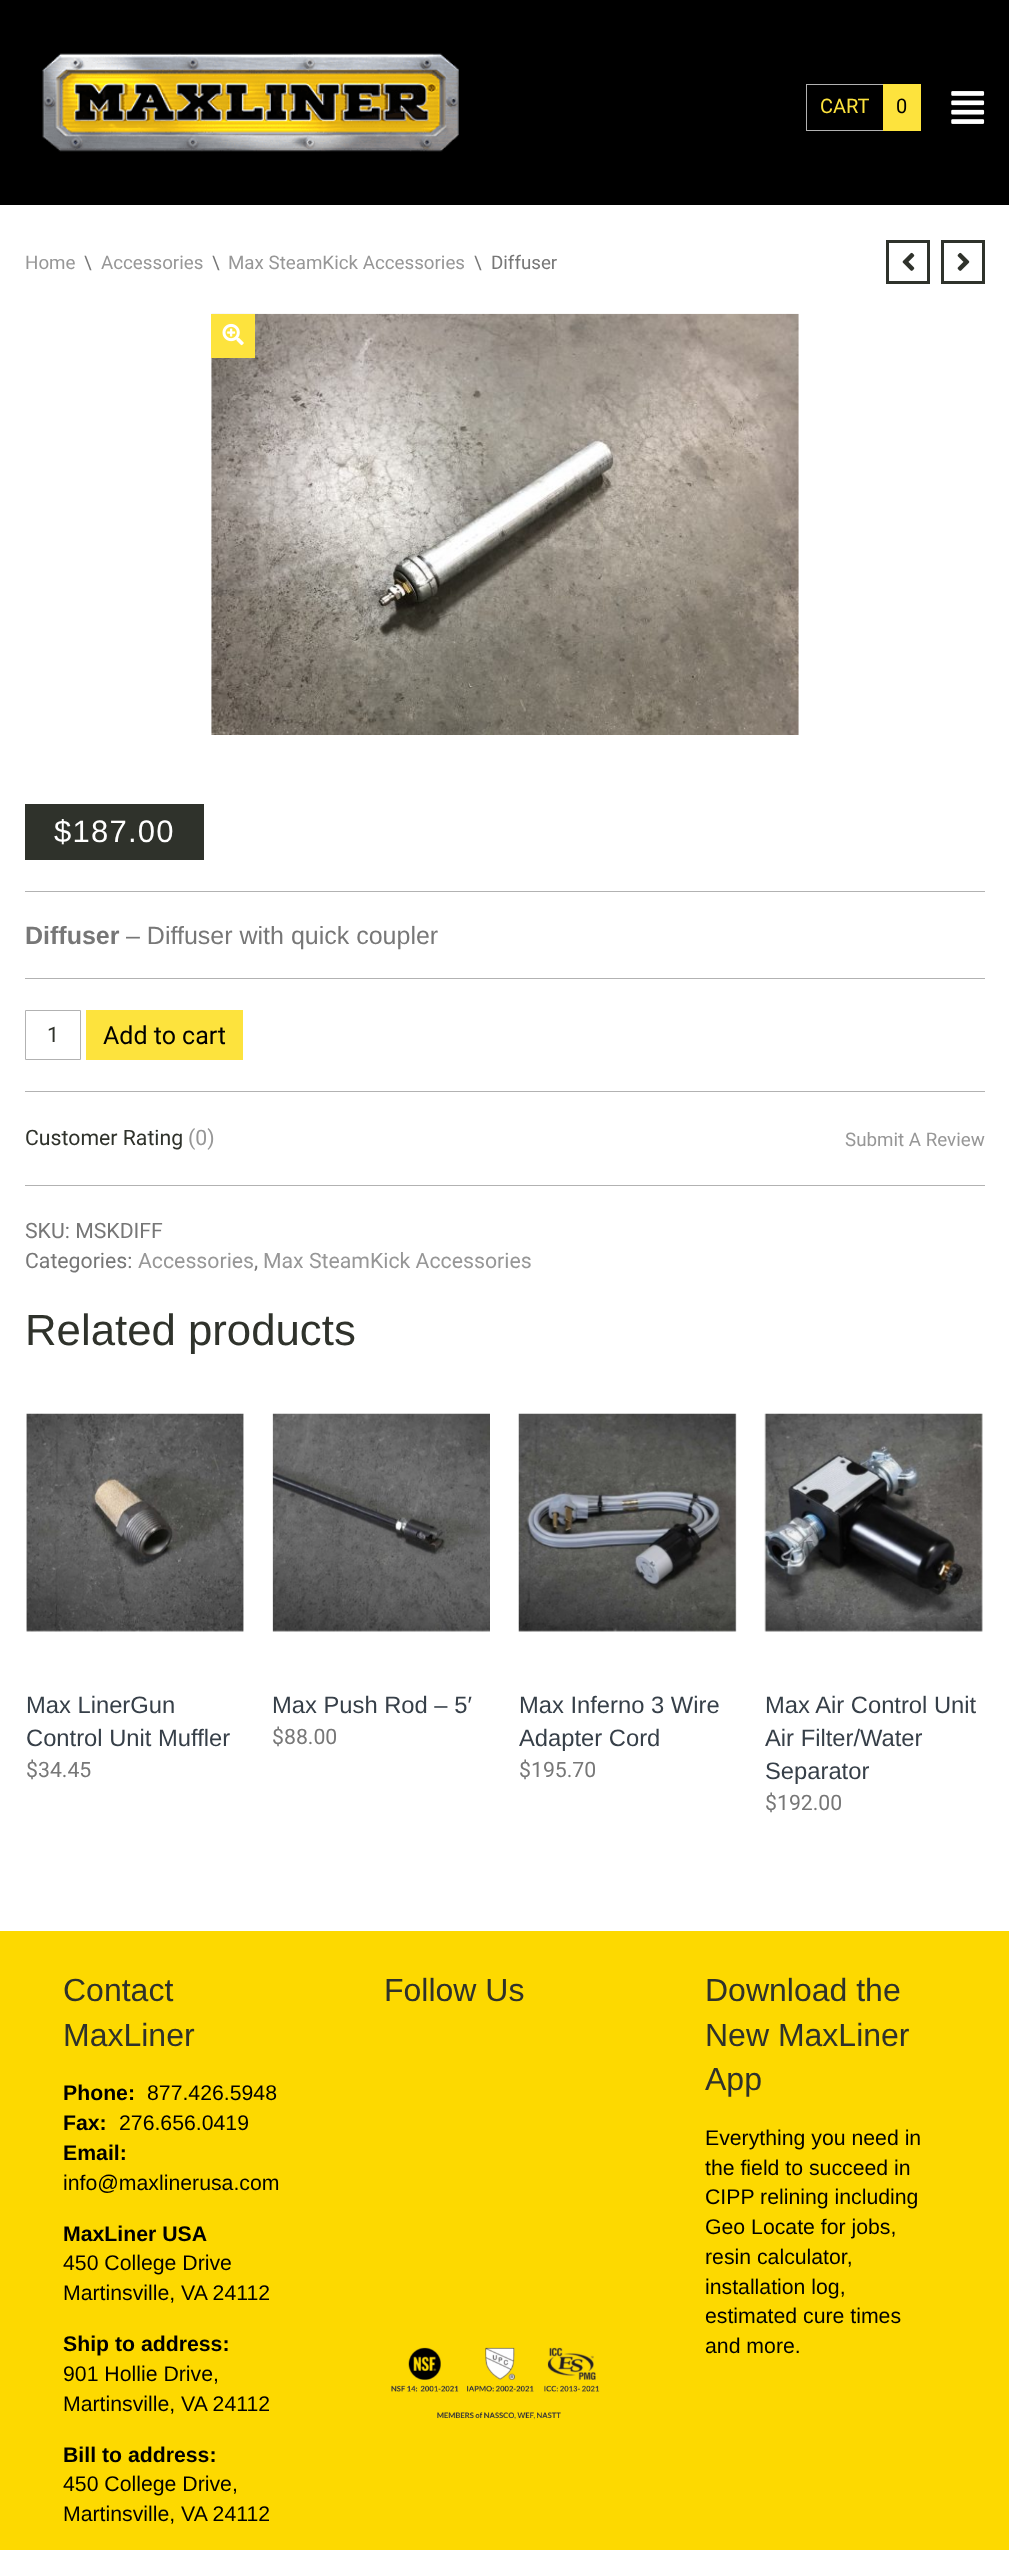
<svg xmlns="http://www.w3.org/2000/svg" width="1009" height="2550">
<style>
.a{font:20px Roboto;fill:#fde33d}
.b{font:20px Roboto;fill:#000}
.c{font:18.75px Roboto;fill:#979797}
.d{font:18.75px Roboto;fill:#777}
.e{font:31px Liberation Sans;letter-spacing:1.25px;fill:#fff}
.f{font:bold 25px Liberation Sans;fill:#777}
.g{font:25px Liberation Sans;fill:#777}
.h{font:21.25px Roboto;fill:#2f322b}
.i{font:25px Roboto;fill:#000}
.j{font:21.25px Roboto;fill:#979797}
.k{font:21.25px Roboto;fill:#777}
.l{font:43.75px Liberation Sans;fill:#2f322b}
.m{font:23.75px Liberation Sans;fill:#363f48}
.n{font:32px Liberation Sans;fill:#2f322b}
.o{font:bold 21.25px Liberation Sans;fill:#000}
.p{font:21.25px Liberation Sans;fill:#000}
</style>
<rect width="100%" height="100%" fill="#fff"/>
<path fill="#000" d="M0 0h1009v205H0z"/>
<image href="1.png" x="42" y="53" width="417" height="99"/>
<path fill="#b2b2b2" d="M806 84h77v1H806z"/>
<path fill="#b2b2b2" d="M806 130h77v1H806z"/>
<path fill="#b2b2b2" d="M806 84h1v47H806z"/>
<path fill="#fde33d" d="M883 84h38v47H883z"/>
<image href="2.png" x="951" y="91" width="34" height="33"/>
<path fill="none" stroke="#2f322b" stroke-width="3" d="M887.5 241.5h41v41H887.5z"/>
<image href="3.png" x="902" y="252" width="13" height="19"/>
<path fill="none" stroke="#2f322b" stroke-width="3" d="M942.5 241.5h41v41H942.5z"/>
<image href="4.png" x="957" y="252" width="13" height="19"/>
<image href="5.png" x="211" y="313" width="588" height="422"/>
<path fill="#fde33d" d="M211 314h44v44H211z"/>
<image href="6.png" x="222" y="323" width="22" height="23"/>
<path fill="#2f322b" d="M25 804h179v56H25z"/>
<path fill="#b2b2b2" d="M25 891h960v1H25z"/>
<path fill="#b2b2b2" d="M25 978h960v1H25z"/>
<path fill="#b2b2b2" d="M25 1091h960v1H25z"/>
<path fill="none" stroke="#b2b2b2" d="M25.5 1010.5h55v49H25.5z"/>
<path fill="#fde33d" d="M86 1010h157v50H86z"/>
<path fill="#b2b2b2" d="M25 1185h960v1H25z"/>
<image href="7.png" x="26" y="1413" width="218" height="219"/>
<image href="8.png" x="272" y="1413" width="218" height="219"/>
<image href="9.png" x="518" y="1413" width="219" height="219"/>
<image href="10.png" x="764" y="1413" width="219" height="219"/>
<path fill="#fdd900" d="M0 1931h1009v619H0z"/>
<image href="11.png" x="391" y="2347" width="209" height="73"/>
<text class="a" x="820" y="113">CART</text>
<text class="b" x="896" y="113">0</text>
<text class="c" x="25" y="269">Home</text>
<text class="d" x="84" y="269">\</text>
<text class="c" x="101" y="269">Accessories</text>
<text class="d" x="212" y="269">\</text>
<text class="c" x="228" y="269">Max SteamKick Accessories</text>
<text class="d" x="474" y="269">\</text>
<text class="d" x="491" y="269">Diffuser</text>
<text class="e" x="54" y="842">$187.00</text>
<text class="f" x="25" y="944">Diffuser</text>
<text class="g" x="126" y="944">– Diffuser with quick coupler</text>
<text class="h" x="47" y="1042">1</text>
<text class="i" x="103" y="1044">Add to cart</text>
<text class="h" x="25" y="1145">Customer Rating</text>
<text class="j" x="188" y="1145">(0)</text>
<text class="c" x="845" y="1146">Submit A Review</text>
<text class="k" x="25" y="1238">SKU: MSKDIFF</text>
<text class="k" x="25" y="1268">Categories:</text>
<text class="j" x="138" y="1268">Accessories</text>
<text class="k" x="254" y="1268">,</text>
<text class="j" x="263" y="1268">Max SteamKick Accessories</text>
<text class="l" x="25" y="1345">Related products</text>
<text class="m" x="26" y="1713">Max LinerGun</text>
<text class="m" x="26" y="1746">Control Unit Muffler</text>
<text class="k" x="26" y="1777">$34.45</text>
<text class="m" x="272" y="1713">Max Push Rod – 5′</text>
<text class="k" x="272" y="1744">$88.00</text>
<text class="m" x="519" y="1713">Max Inferno 3 Wire</text>
<text class="m" x="519" y="1746">Adapter Cord</text>
<text class="k" x="519" y="1777">$195.70</text>
<text class="m" x="765" y="1713">Max Air Control Unit</text>
<text class="m" x="765" y="1746">Air Filter/Water</text>
<text class="m" x="765" y="1779">Separator</text>
<text class="k" x="765" y="1810">$192.00</text>
<text class="n" x="63" y="2001">Contact</text>
<text class="n" x="63" y="2046">MaxLiner</text>
<text class="o" x="63" y="2100">Phone:</text>
<text class="p" x="147" y="2100">877.426.5948</text>
<text class="o" x="63" y="2130">Fax:</text>
<text class="p" x="119" y="2130">276.656.0419</text>
<text class="o" x="63" y="2160">Email:</text>
<text class="p" x="63" y="2190">info@maxlinerusa.com</text>
<text class="o" x="63" y="2241">MaxLiner USA</text>
<text class="p" x="63" y="2270">450 College Drive</text>
<text class="p" x="63" y="2300">Martinsville, VA 24112</text>
<text class="o" x="63" y="2351">Ship to address:</text>
<text class="p" x="63" y="2381">901 Hollie Drive,</text>
<text class="p" x="63" y="2411">Martinsville, VA 24112</text>
<text class="o" x="63" y="2462">Bill to address:</text>
<text class="p" x="63" y="2491">450 College Drive,</text>
<text class="p" x="63" y="2521">Martinsville, VA 24112</text>
<text class="n" x="384" y="2001">Follow Us</text>
<text class="n" x="705" y="2001">Download the</text>
<text class="n" x="705" y="2046">New MaxLiner</text>
<text class="n" x="705" y="2090">App</text>
<text class="p" x="705" y="2145">Everything you need in</text>
<text class="p" x="705" y="2175">the field to succeed in</text>
<text class="p" x="705" y="2204">CIPP relining including</text>
<text class="p" x="705" y="2234">Geo Locate for jobs,</text>
<text class="p" x="705" y="2264">resin calculator,</text>
<text class="p" x="705" y="2294">installation log,</text>
<text class="p" x="705" y="2323">estimated cure times</text>
<text class="p" x="705" y="2353">and more.</text>
</svg>
